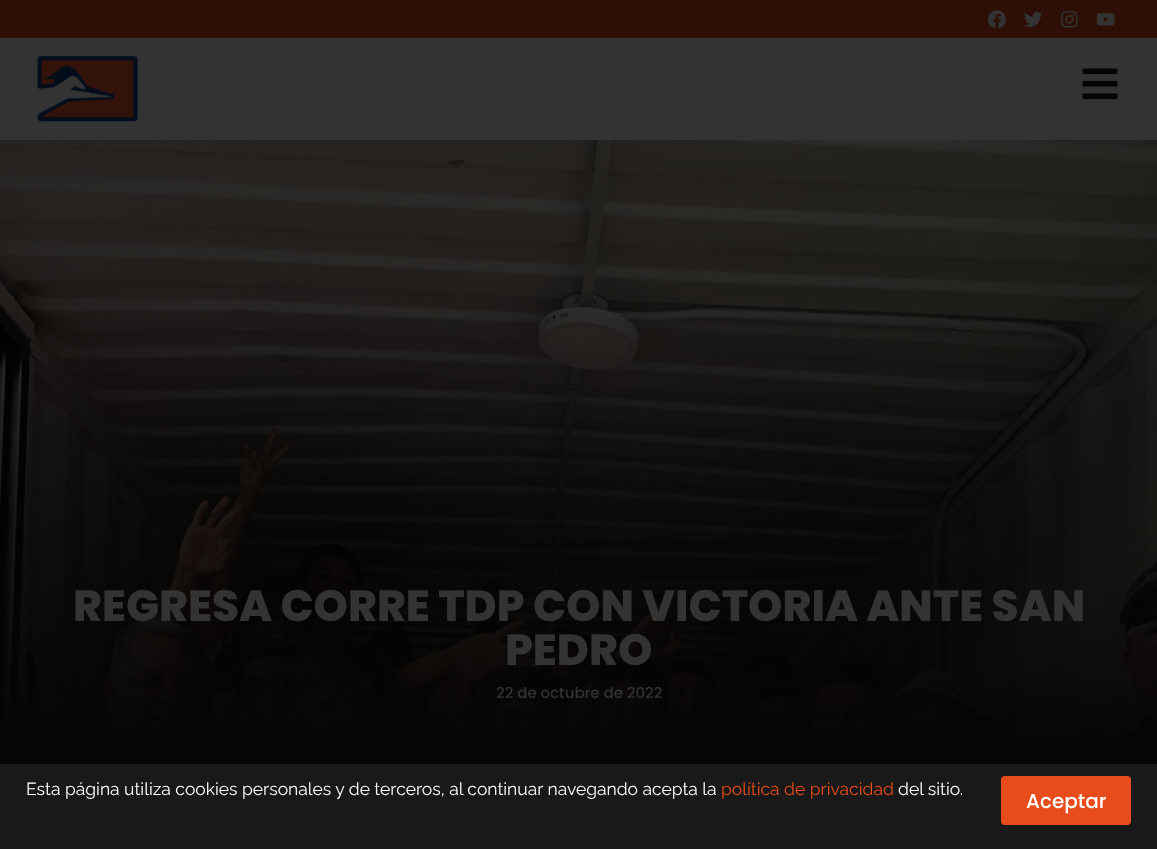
<svg xmlns="http://www.w3.org/2000/svg" width="1157" height="849">
<style>
.a{font:800 43.75px Poppins;fill:#333}
.b{font:500 15px Poppins;fill:#333}
.c{font:17.5px Raleway;fill:#fff}
.d{font:17.5px Raleway;fill:#e84c1a}
.e{font:500 20px Poppins;fill:#fff}
</style>
<defs>
<linearGradient id="g1" gradientUnits="userSpaceOnUse" x1="579" y1="140" x2="579" y2="753"><stop offset="0.25" stop-color="#050505" stop-opacity="0"/><stop offset="1" stop-color="#050505"/></linearGradient>
</defs>
<rect width="100%" height="100%" fill="#050505"/>
<path fill="#2e0f05" d="M0 0h1157v38H0z"/>
<image href="1.png" x="988" y="10" width="18" height="19"/>
<image href="2.png" x="1024" y="11" width="19" height="16"/>
<image href="3.png" x="1061" y="11" width="17" height="17"/>
<image href="4.png" x="1096" y="13" width="19" height="13"/>
<path fill="#333" d="M0 38h1157v102H0z"/>
<image href="5.png" x="37" y="56" width="101" height="66"/>
<image href="6.png" x="1082" y="68" width="36" height="32"/>
<image href="7.png" x="0" y="140" width="1157" height="610"/>
<path fill="url(#g1)" d="M0 319h1157v431H0z"/>
<path fill="#191919" d="M0 764h1157v85H0z"/>
<rect fill="#e84c1a" x="1001" y="776" width="130" height="49" rx="4"/>
<text class="a" x="73" y="621">REGRESA CORRE TDP CON VICTORIA ANTE SAN</text>
<text class="a" x="505" y="665">PEDRO</text>
<text class="b" x="496" y="698">22 de octubre de 2022</text>
<text class="c" x="26" y="795">Esta página utiliza cookies personales y de terceros, al continuar navegando acepta la</text>
<text class="d" x="721" y="795">política de privacidad</text>
<text class="c" x="898" y="795">del sitio.</text>
<text class="e" x="1026" y="808">Aceptar</text>
</svg>
